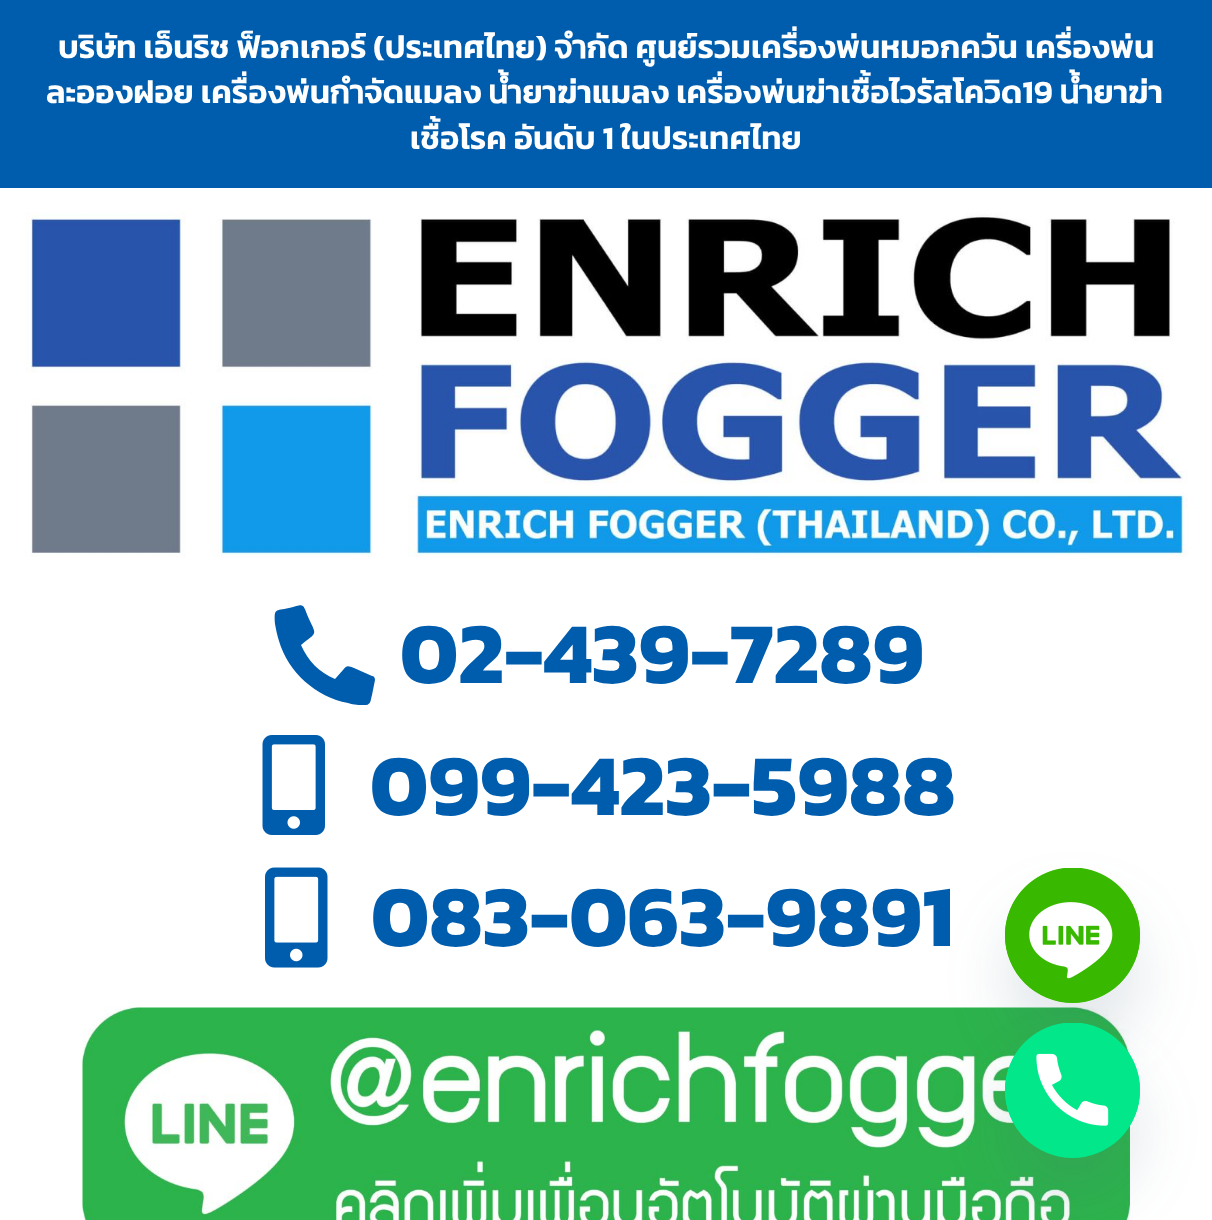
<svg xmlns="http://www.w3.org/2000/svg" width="1212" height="1220">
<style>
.a{font:600 32.5px Kanit;fill:#fff}
.b{font:bold 87.5px Kanit;fill:#005dad}
</style>
<rect width="100%" height="100%" fill="#fff"/>
<path fill="#005dad" d="M0 0h1212v188H0z"/>
<image href="1.png" x="25" y="212" width="1163" height="345"/>
<path fill="#005dad" d="M372 676c2 0 3 2 3 4l-3 15c-1 3-1 10-6 10c-8 0-11 0-18-2c-32-6-60-31-69-62c-2-6-3-12-4-17c-1-16 0-13 14-16c16-4 13-6 20 11c8 17 8 13-8 26c7 16 18 27 34 34l8-9c4-5 5-4 11-2z"/>
<image href="2.png" x="262" y="735" width="63" height="100"/>
<image href="3.png" x="265" y="867" width="63" height="101"/>
<image href="4.png" x="82" y="1007" width="1048" height="213"/>
<rect fill="#49687e29" filter="blur(30px)" x="1005" y="908" width="135" height="135" rx="67.5"/>
<circle fill="#38b900" cx="1072.5" cy="935.5" r="67.5"/>
<image href="5.png" x="1005" y="868" width="135" height="135"/>
<rect fill="#49687e29" filter="blur(30px)" x="1005" y="1063" width="135" height="135" rx="67.5"/>
<circle fill="#03e78b" cx="1072.5" cy="1090.5" r="67.5"/>
<image href="6.png" x="1005" y="1023" width="135" height="118"/>
<text class="a" x="58" y="58">บริษัท เอ็นริช ฟ็อกเกอร์ (ประเทศไทย) จำกัด ศูนย์รวมเครื่องพ่นหมอกควัน เครื่องพ่น</text>
<text class="a" x="46" y="103">ละอองฝอย เครื่องพ่นกำจัดแมลง น้ำยาฆ่าแมลง เครื่องพ่นฆ่าเชื้อไวรัสโควิด19 น้ำยาฆ่า</text>
<text class="a" x="410" y="149">เชื้อโรค อันดับ 1 ในประเทศไทย</text>
<text class="b" x="400" y="683">02-439-7289</text>
<text class="b" x="370" y="815">099-423-5988</text>
<text class="b" x="371" y="946">083-063-9891</text>
</svg>
